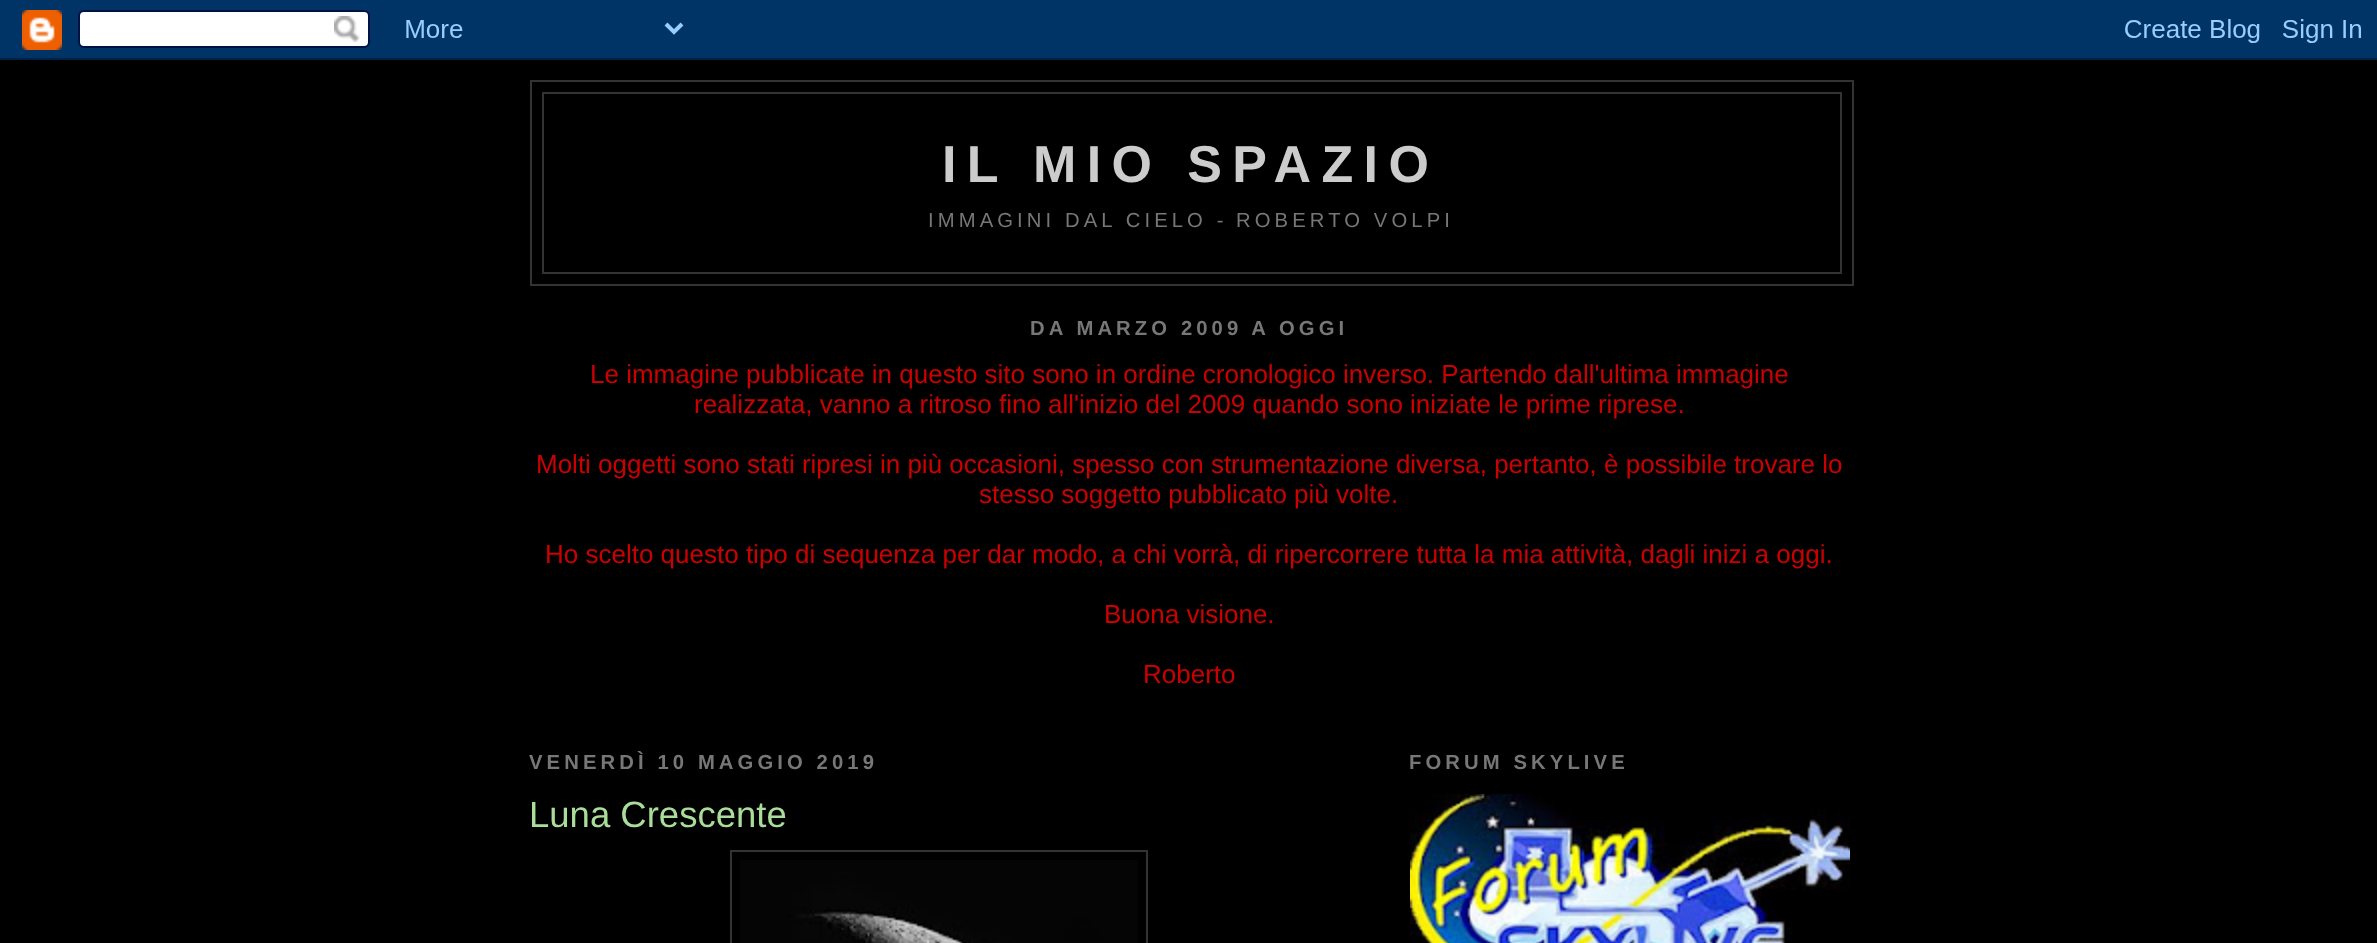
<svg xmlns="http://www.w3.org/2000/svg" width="2377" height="943">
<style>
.a{font:bold 52px Liberation Sans;letter-spacing:10.4px;fill:#ccc}
.b{font:20.25px Liberation Sans;letter-spacing:4.1px;fill:#777}
.c{font:bold 20.25px Liberation Sans;letter-spacing:4.1px;fill:#777}
.d{font:26px Liberation Sans;fill:#c00}
.e{font:36.5px Liberation Sans;fill:#ad9}
</style>
<rect width="100%" height="100%" fill="#000"/>
<image href="1.png" x="0" y="0" width="2377" height="60"/>
<path fill="none" stroke="#333" stroke-width="2" d="M531 81h1322v204H531z"/>
<path fill="none" stroke="#333" stroke-width="2" d="M543 93h1298v180H543z"/>
<path fill="none" stroke="#333" stroke-width="2" d="M731 851h416v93H731z"/>
<image href="2.png" x="740" y="860" width="398" height="83"/>
<image href="3.png" x="1410" y="794" width="440" height="149"/>
<text class="a" x="942" y="182">IL MIO SPAZIO</text>
<text class="b" x="928" y="227">IMMAGINI DAL CIELO -</text>
<text class="b" x="1236" y="227">ROBERTO VOLPI</text>
<text class="c" x="1030" y="335">DA MARZO 2009 A OGGI</text>
<text class="d" x="590" y="383">Le immagine pubblicate in questo sito sono in ordine cronologico inverso. Partendo dall'ultima immagine</text>
<text class="d" x="694" y="413">realizzata, vanno a ritroso fino all'inizio del 2009 quando sono iniziate le prime riprese.</text>
<text class="d" x="536" y="473">Molti oggetti sono stati ripresi in più occasioni, spesso con strumentazione diversa, pertanto, è possibile trovare lo</text>
<text class="d" x="979" y="503">stesso soggetto pubblicato più volte.</text>
<text class="d" x="545" y="563">Ho scelto questo tipo di sequenza per dar modo, a chi vorrà, di ripercorrere tutta la mia attività, dagli inizi a oggi.</text>
<text class="d" x="1104" y="623">Buona visione.</text>
<text class="d" x="1143" y="683">Roberto</text>
<text class="c" x="529" y="769">VENERDÌ 10 MAGGIO 2019</text>
<text class="e" x="529" y="827">Luna Crescente</text>
<text class="c" x="1409" y="769">FORUM SKYLIVE</text>
</svg>
